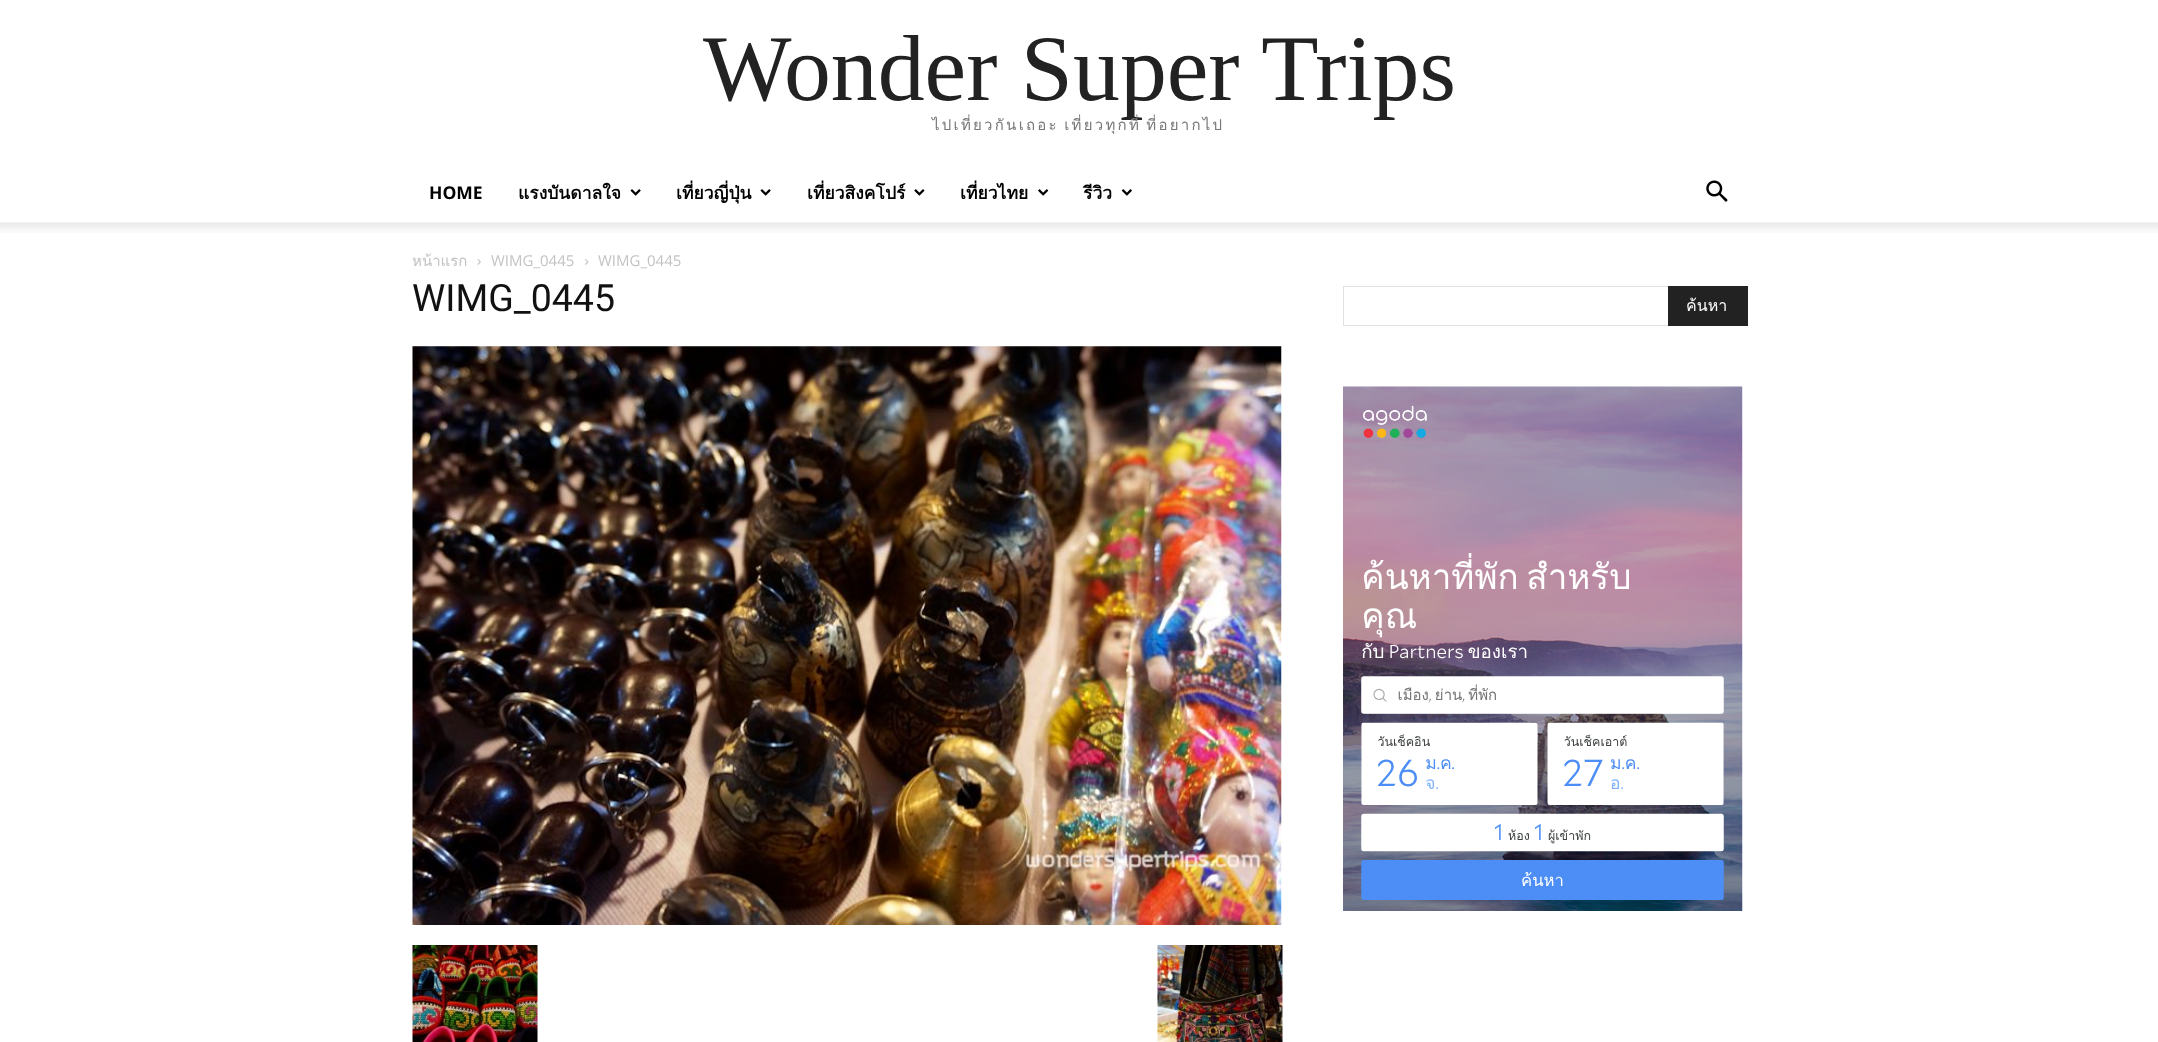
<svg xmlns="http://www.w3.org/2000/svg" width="2158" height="1042">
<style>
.a{font:93.75px Liberation Serif;fill:#222}
.b{font:15px Loma;letter-spacing:2.25px;fill:#777}
.c{font:bold 17.5px Open Sans;fill:#000}
.d{font:bold 17.5px Loma;fill:#000}
.e{font:15px Loma;fill:#c3c3c3}
.f{font:15px Open Sans;fill:#c3c3c3}
.g{font:37.5px Roboto;fill:#111}
.h{font:16px Loma;fill:#fff}
</style>
<rect width="100%" height="100%" fill="#fff"/>
<image href="1.png" x="630" y="189" width="11" height="7"/>
<image href="1.png" x="760" y="189" width="11" height="7"/>
<image href="2.png" x="914" y="189" width="11" height="7"/>
<image href="3.png" x="1038" y="189" width="11" height="7"/>
<image href="4.png" x="1121" y="189" width="11" height="7"/>
<image href="5.png" x="1706" y="180" width="22" height="22"/>
<image href="6.png" x="0" y="222" width="2158" height="11"/>
<image href="7.png" x="477" y="259" width="4" height="6"/>
<image href="8.png" x="585" y="259" width="4" height="6"/>
<image href="9.png" x="412" y="346" width="870" height="579"/>
<image href="10.png" x="412" y="945" width="126" height="97"/>
<image href="11.png" x="1157" y="945" width="126" height="97"/>
<path fill="#e1e1e1" d="M1343 286h325v1H1343z"/>
<path fill="#e1e1e1" d="M1343 325h325v1H1343z"/>
<path fill="#e1e1e1" d="M1343 286h1v40H1343z"/>
<path fill="#222" d="M1668 286h80v40H1668z"/>
<image href="12.png" x="1343" y="386" width="400" height="525"/>
<text class="a" x="703" y="100">Wonder Super Trips</text>
<text class="b" x="932" y="130" word-spacing="-2">ไปเที่ยวกันเถอะ เที่ยวทุกที่ ที่อยากไป</text>
<text class="c" x="429" y="199">HOME</text>
<text class="d" x="518" y="199">แรงบันดาลใจ</text>
<text class="d" x="676" y="199">เที่ยวญี่ปุ่น</text>
<text class="d" x="807" y="199">เที่ยวสิงคโปร์</text>
<text class="d" x="960" y="199">เที่ยวไทย</text>
<text class="d" x="1083" y="199">รีวิว</text>
<text class="e" x="412" y="266">หน้าแรก</text>
<text class="f" x="491" y="266">WIMG_0445</text>
<text class="f" x="598" y="266">WIMG_0445</text>
<text class="g" x="412" y="311">WIMG_0445</text>
<text class="h" x="1686" y="311">ค้นหา</text>
</svg>
